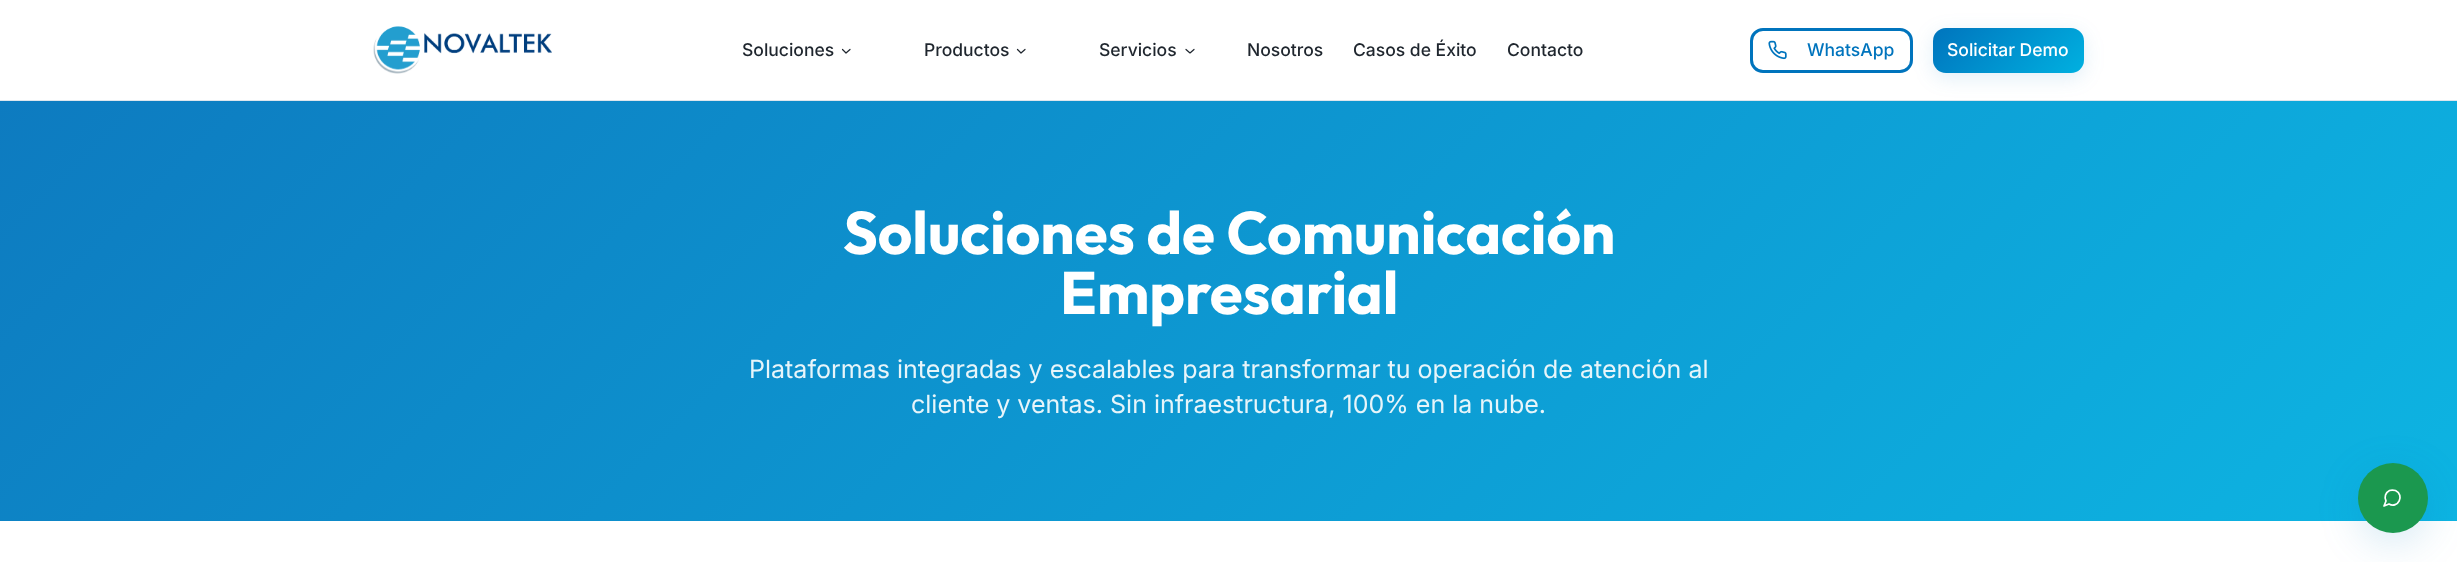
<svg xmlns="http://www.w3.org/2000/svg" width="2457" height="562">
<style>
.a{font:500 17.5px Inter;fill:#1f262e}
.b{font:500 17.5px Inter;fill:#0074bd}
.c{font:500 17.5px Inter;fill:#fff}
.d{font:bold 60px Outfit;fill:#fff}
.e{font:25px Inter;fill:#e7f5fa}
</style>
<defs>
<linearGradient id="g1" gradientUnits="userSpaceOnUse" x1="509" y1="-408" x2="1948" y2="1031"><stop offset="0" stop-color="#0d7bc0"/><stop offset="1" stop-color="#0db4e2"/></linearGradient>
<linearGradient id="g2" gradientUnits="userSpaceOnUse" x1="1959" y1="0.9" x2="2057" y2="99"><stop offset="0" stop-color="#0074bd"/><stop offset="1" stop-color="#00b0e0"/></linearGradient>
</defs>
<rect width="100%" height="100%" fill="#fff"/>
<path fill="#dee6ed" d="M0 100h2457v1H0z"/>
<image href="1.png" x="373" y="26" width="179" height="48"/>
<path fill="none" stroke="#1f262e" stroke-width="1.2" stroke-linecap="round" stroke-linejoin="round" d="M842.5 49.5l3.5 3.5l4-3.5"/>
<path fill="none" stroke="#1f262e" stroke-width="1.2" stroke-linecap="round" stroke-linejoin="round" d="M1017.5 49.5l3.5 3.5l4-3.5"/>
<path fill="none" stroke="#1f262e" stroke-width="1.2" stroke-linecap="round" stroke-linejoin="round" d="M1186 49.5l4 3.5l4-3.5"/>
<rect fill="none" stroke="#0074bd" stroke-width="3" x="1751.5" y="29.5" width="160" height="42" rx="11.5"/>
<image href="2.png" x="1768" y="40" width="19" height="20"/>
<path fill="url(#g1)" d="M0 101h2457v420H0z"/>
<rect fill="#0074bd1f" filter="blur(10px)" x="1933" y="33" width="151" height="45" rx="13"/>
<rect fill="url(#g2)" x="1933" y="28" width="151" height="45" rx="13"/>
<rect fill="#0074bd29" filter="blur(20px)" x="2358" y="473" width="70" height="70" rx="35"/>
<circle fill="#1b984f" cx="2393" cy="498" r="35"/>
<path fill="none" stroke="#fff" stroke-width="1.7" stroke-linecap="round" stroke-linejoin="round" d="M2389 504c9 5 16-9 6.5-13.5c-2-.5-4.5-.5-6 0c-4 2-5.5 6.5-3.5 10.5l-2 5z"/>
<text class="a" x="742" y="56">Soluciones</text>
<text class="a" x="924" y="56">Productos</text>
<text class="a" x="1099" y="56">Servicios</text>
<text class="a" x="1247" y="56">Nosotros</text>
<text class="a" x="1353" y="56">Casos de Éxito</text>
<text class="a" x="1507" y="56">Contacto</text>
<text class="b" x="1807" y="56">WhatsApp</text>
<text class="c" x="1947" y="56">Solicitar Demo</text>
<text class="d" x="843" y="254">Soluciones de Comunicación</text>
<text class="d" x="1060" y="314">Empresarial</text>
<text class="e" x="749" y="378">Plataformas integradas y escalables para transformar tu operación de atención al</text>
<text class="e" x="911" y="413">cliente y ventas. Sin infraestructura, 100% en la nube.</text>
</svg>
